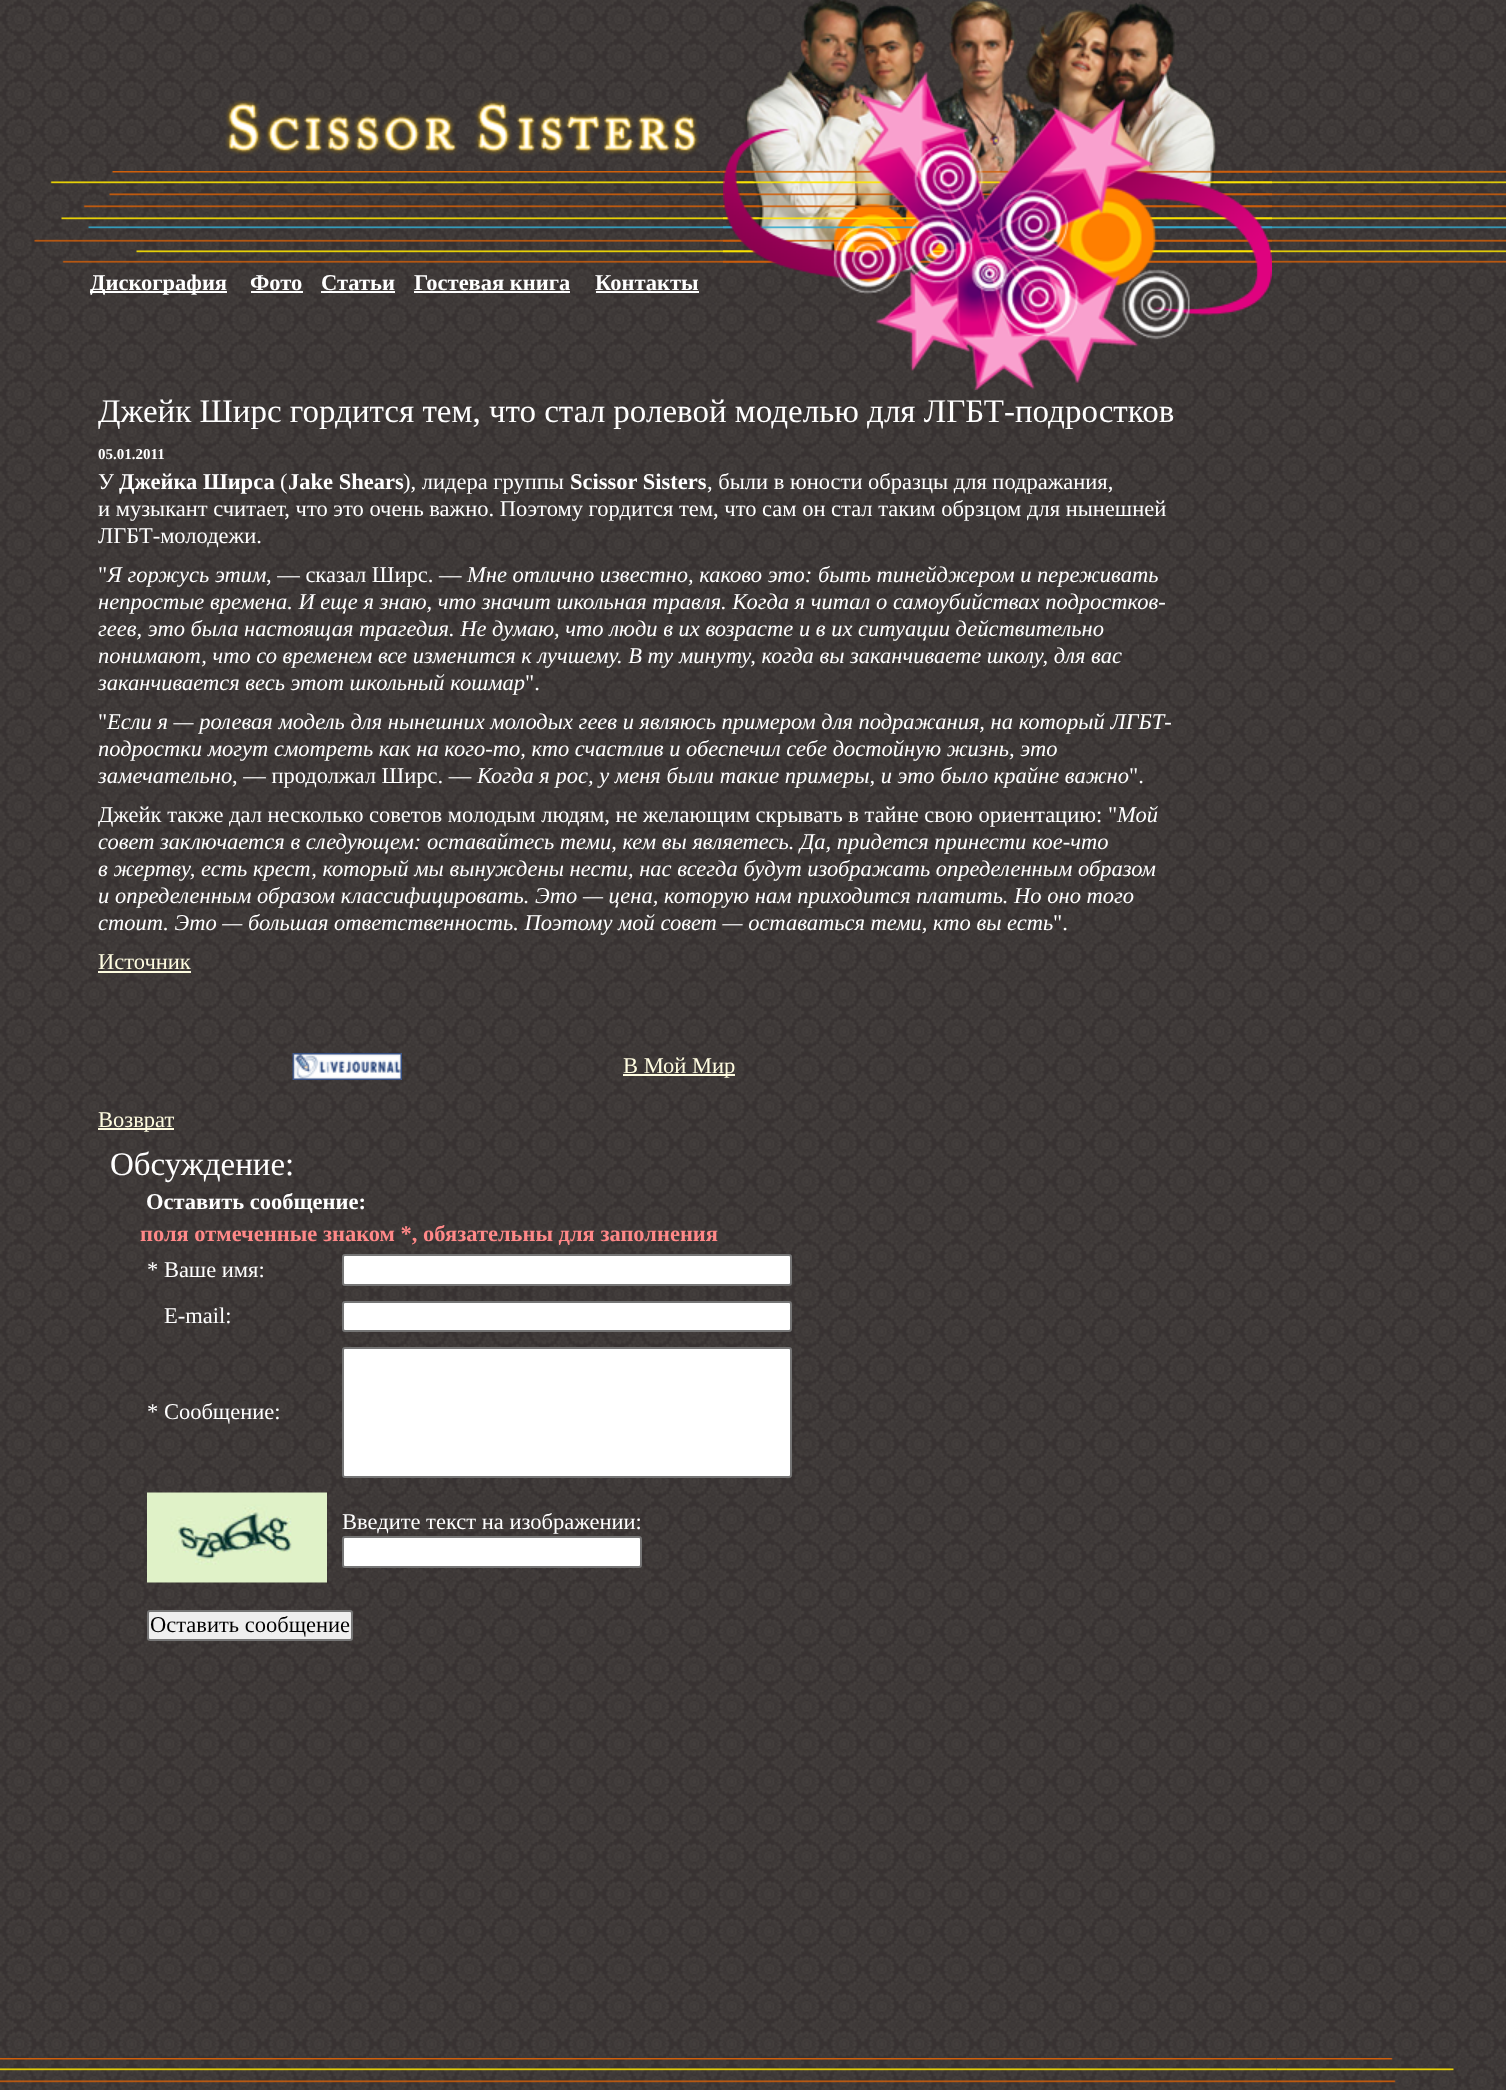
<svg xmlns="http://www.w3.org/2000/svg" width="1506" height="2090">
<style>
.a{font:bold 22.5px Liberation Serif;fill:#fff}
.b{font:33px Liberation Serif;fill:#fff}
.c{font:bold 15px Liberation Serif;fill:#fff}
.d{font:22.5px Liberation Serif;fill:#fff}
.e{font:italic 22.5px Liberation Serif;fill:#fff}
.f{font:22.5px Liberation Serif;fill:#fffde1}
.g{font:bold 22.5px Liberation Serif;fill:#f88}
.h{font:22.5px Liberation Serif;fill:#000}
</style>
<rect width="100%" height="100%" fill="#fff"/>
<image href="1.png" x="0" y="0" width="1506" height="2090"/>
<image href="2.png" x="34" y="171" width="686" height="92"/>
<image href="3.png" x="225" y="100" width="474" height="55"/>
<image href="4.png" x="720" y="170" width="555" height="93"/>
<image href="5.png" x="723" y="0" width="549" height="390"/>
<image href="6.png" x="1275" y="170" width="231" height="93"/>
<path fill="#fff" d="M90 291h137v2H90z"/>
<path fill="#fff" d="M251 291h52v2H251z"/>
<path fill="#fff" d="M321 291h74v2H321z"/>
<path fill="#fff" d="M414 291h156v2H414z"/>
<path fill="#fff" d="M596 291h103v2H596z"/>
<path fill="#fffde1" d="M98 971h93v2H98z"/>
<image href="7.png" x="292" y="1053" width="110" height="27"/>
<path fill="#fffde1" d="M623 1074h112v2H623z"/>
<path fill="#fffde1" d="M98 1128h76v2H98z"/>
<rect fill="#fff" stroke="#767676" stroke-width="2" x="343" y="1255" width="448" height="30" rx="2"/>
<rect fill="#fff" stroke="#767676" stroke-width="2" x="343" y="1302" width="448" height="29" rx="2"/>
<rect fill="#fff" stroke="#767676" stroke-width="2" x="343" y="1348" width="448" height="129" rx="2"/>
<image href="8.png" x="147" y="1492" width="180" height="91"/>
<rect fill="#fff" stroke="#767676" stroke-width="2" x="343" y="1537" width="298" height="30" rx="2"/>
<rect fill="#efefef" stroke="#767676" stroke-width="2" x="148" y="1611" width="204" height="29" rx="2"/>
<image href="9.png" x="0" y="2058" width="1277" height="25"/>
<image href="10.png" x="1276" y="2058" width="178" height="25"/>
<text class="a" x="90" y="290">Дискография</text>
<text class="a" x="250" y="290">Фото</text>
<text class="a" x="321" y="290">Статьи</text>
<text class="a" x="414" y="290">Гостевая книга</text>
<text class="a" x="595" y="290">Контакты</text>
<text class="b" x="98" y="422">Джейк Ширс гордится тем, что стал ролевой моделью для ЛГБТ-подростков</text>
<text class="c" x="98" y="459">05.01.2011</text>
<text class="d" x="98" y="489">У</text>
<text class="a" x="119" y="489">Джейка Ширса</text>
<text class="d" x="280" y="489">(</text>
<text class="a" x="288" y="489">Jake Shears</text>
<text class="d" x="403" y="489">), лидера группы</text>
<text class="a" x="570" y="489">Scissor Sisters</text>
<text class="d" x="707" y="489">, были в юности образцы для подражания,</text>
<text class="d" x="98" y="516">и музыкант считает, что это очень важно. Поэтому гордится тем, что сам он стал таким обрзцом для нынешней</text>
<text class="d" x="98" y="543">ЛГБТ-молодежи.</text>
<text class="d" x="98" y="582">"</text>
<text class="e" x="107" y="582">Я горжусь этим</text>
<text class="d" x="266" y="582">, — сказал Ширс. —</text>
<text class="e" x="467" y="582">Мне отлично известно, каково это: быть тинейджером и переживать</text>
<text class="e" x="98" y="609">непростые времена. И еще я знаю, что значит школьная травля. Когда я читал о самоубийствах подростков-</text>
<text class="e" x="98" y="636">геев, это была настоящая трагедия. Не думаю, что люди в их возрасте и в их ситуации действительно</text>
<text class="e" x="98" y="663">понимают, что со временем все изменится к лучшему. В ту минуту, когда вы заканчиваете школу, для вас</text>
<text class="e" x="98" y="690">заканчивается весь этот школьный кошмар</text>
<text class="d" x="525" y="690">".</text>
<text class="d" x="98" y="729">"</text>
<text class="e" x="107" y="729">Если я — ролевая модель для нынешних молодых геев и являюсь примером для подражания, на который ЛГБТ-</text>
<text class="e" x="98" y="756">подростки могут смотреть как на кого-то, кто счастлив и обеспечил себе достойную жизнь, это</text>
<text class="e" x="98" y="783">замечательно</text>
<text class="d" x="232" y="783">, — продолжал Ширс. —</text>
<text class="e" x="477" y="783">Когда я рос, у меня были такие примеры, и это было крайне важно</text>
<text class="d" x="1129" y="783">".</text>
<text class="d" x="98" y="822">Джейк также дал несколько советов молодым людям, не желающим скрывать в тайне свою ориентацию: "</text>
<text class="e" x="1117" y="822">Мой</text>
<text class="e" x="98" y="849">совет заключается в следующем: оставайтесь теми, кем вы являетесь. Да, придется принести кое-что</text>
<text class="e" x="98" y="876">в жертву, есть крест, который мы вынуждены нести, нас всегда будут изображать определенным образом</text>
<text class="e" x="98" y="903">и определенным образом классифицировать. Это — цена, которую нам приходится платить. Но оно того</text>
<text class="e" x="98" y="930">стоит. Это — большая ответственность. Поэтому мой совет — оставаться теми, кто вы есть</text>
<text class="d" x="1053" y="930">".</text>
<text class="f" x="98" y="969">Источник</text>
<text class="f" x="623" y="1073">В Мой Мир</text>
<text class="f" x="98" y="1127">Возврат</text>
<text class="b" x="110" y="1175">Обсуждение:</text>
<text class="a" x="146" y="1209">Оставить сообщение:</text>
<text class="g" x="140" y="1241">поля отмеченные знаком *, обязательны для заполнения</text>
<text class="d" x="147" y="1277">* Ваше имя:</text>
<text class="d" x="164" y="1323">E-mail:</text>
<text class="d" x="147" y="1419">* Сообщение:</text>
<text class="d" x="342" y="1529">Введите текст на изображении:</text>
<text class="h" x="150" y="1632">Оставить сообщение</text>
</svg>
